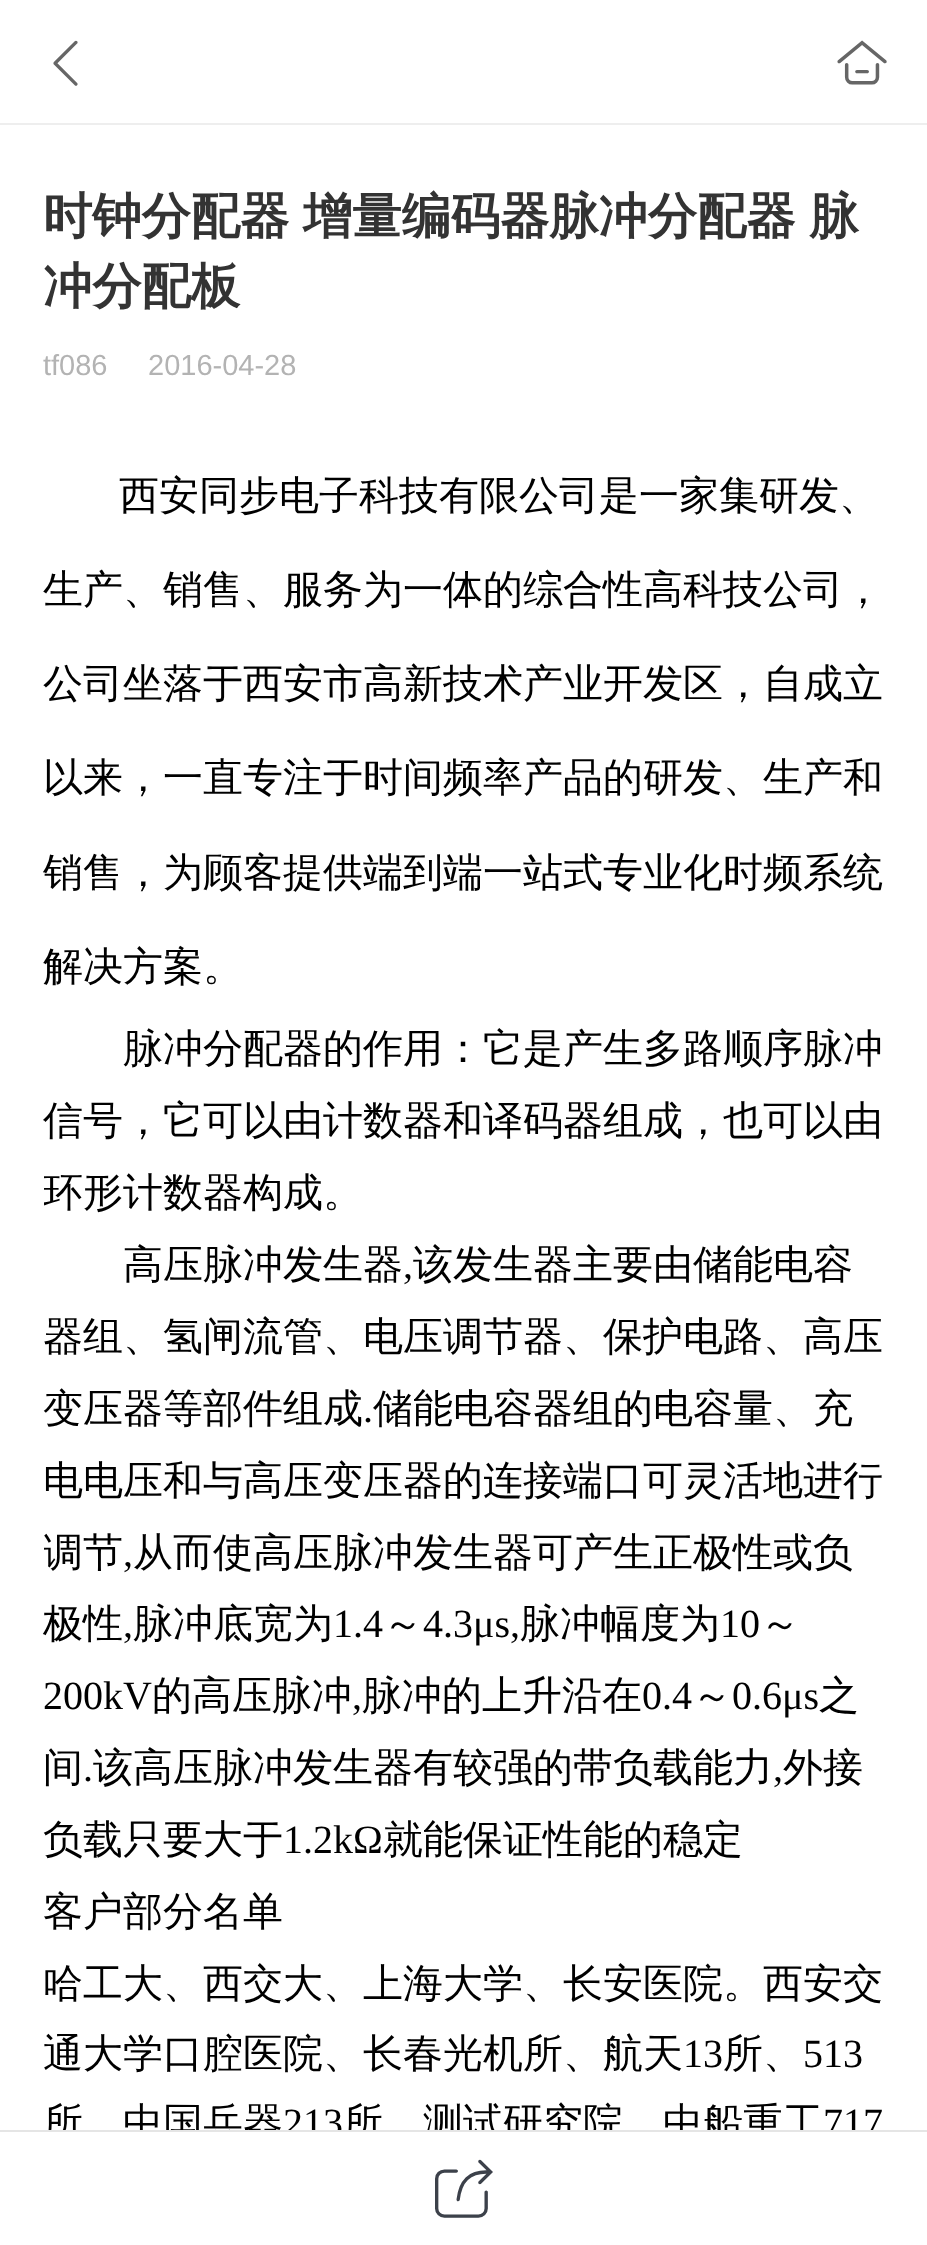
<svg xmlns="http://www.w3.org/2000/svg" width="927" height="2245">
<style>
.a{font:45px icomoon;fill:#666}
.b{font:49.25px icomoon;fill:#666}
.c{font:bold 49.25px WenQuanYi Zen Hei;fill:#333}
.d{font:29px Liberation Sans;fill:#b3b3b3}
.e{font:500 40px WenQuanYi Zen Hei;fill:#000}
.f{font:40px Liberation Serif;fill:#000}
.g{font:58px icomoon;fill:#3c414a}
</style>
<defs>
<clipPath id="clip1"><path d="M44 449h840v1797H44z"/></clipPath>
</defs>
<rect width="100%" height="100%" fill="#fff"/>
<path fill="#eee" d="M0 123h927v2H0z"/>
<text class="a" x="43" y="82">򰊔</text>
<text class="b" x="837" y="83">򰌓</text>
<text class="c" x="43" y="233" word-spacing="-1">时钟分配器 增量编码器脉冲分配器 脉</text>
<text class="c" x="43" y="303">冲分配板</text>
<text class="d" x="43" y="375">tf086</text>
<text class="d" x="148" y="375">2016-04-28</text>
<text class="e" x="119" y="509">西安同步电子科技有限公司是一家集研发、</text>
<text class="e" x="43" y="603">生产、销售、服务为一体的综合性高科技公司，</text>
<text class="e" x="43" y="697">公司坐落于西安市高新技术产业开发区，自成立</text>
<text class="e" x="43" y="791">以来，一直专注于时间频率产品的研发、生产和</text>
<text class="e" x="43" y="886">销售，为顾客提供端到端一站式专业化时频系统</text>
<text class="e" x="43" y="980">解决方案。</text>
<text class="e" x="123" y="1062">脉冲分配器的作用：它是产生多路顺序脉冲</text>
<text class="e" x="43" y="1134">信号，它可以由计数器和译码器组成，也可以由</text>
<g clip-path="url(#clip1)">
<text class="e" x="43" y="1206">环形计数器构成。</text>
</g>
<text class="e" x="123" y="1278">高压脉冲发生器</text>
<text class="f" x="403" y="1278">,</text>
<text class="e" x="413" y="1278">该发生器主要由储能电容</text>
<text class="e" x="43" y="1350">器组、氢闸流管、电压调节器、保护电路、高压</text>
<text class="e" x="43" y="1422">变压器等部件组成</text>
<text class="f" x="363" y="1422">.</text>
<text class="e" x="373" y="1422">储能电容器组的电容量、充</text>
<text class="e" x="43" y="1494">电电压和与高压变压器的连接端口可灵活地进行</text>
<g clip-path="url(#clip1)">
<text class="e" x="43" y="1566">调节</text>
</g>
<text class="f" x="123" y="1566">,</text>
<text class="e" x="133" y="1566">从而使高压脉冲发生器可产生正极性或负</text>
<text class="e" x="43" y="1637">极性</text>
<text class="e" x="133" y="1637">脉冲底宽为</text>
<text class="f" x="333" y="1637">1.4</text>
<text class="e" x="383" y="1637">～</text>
<text class="f" x="423" y="1637">4.3μs,</text>
<text class="e" x="520" y="1637">脉冲幅度为</text>
<text class="f" x="720" y="1637">10</text>
<text class="e" x="760" y="1637">～</text>
<text class="f" x="123" y="1637">,</text>
<text class="f" x="43" y="1709">200kV</text>
<text class="e" x="152" y="1709">的高压脉冲</text>
<text class="e" x="362" y="1709">脉冲的上升沿在</text>
<text class="f" x="642" y="1709">0.4</text>
<text class="e" x="692" y="1709">～</text>
<text class="f" x="732" y="1709">0.6μs</text>
<text class="e" x="819" y="1709">之</text>
<text class="f" x="352" y="1709">,</text>
<text class="e" x="43" y="1781">间</text>
<text class="f" x="83" y="1781">.</text>
<text class="e" x="93" y="1781">该高压脉冲发生器有较强的带负载能力</text>
<text class="f" x="773" y="1781">,</text>
<text class="e" x="783" y="1781">外接</text>
<text class="e" x="43" y="1853">负载只要大于</text>
<text class="f" x="283" y="1853">1.2kΩ</text>
<text class="e" x="383" y="1853">就能保证性能的稳定</text>
<text class="e" x="43" y="1925">客户部分名单</text>
<text class="e" x="43" y="1997">哈工大、西交大、上海大学、长安医院。西安交</text>
<text class="e" x="43" y="2067">通大学口腔医院、长春光机所、航天</text>
<text class="f" x="683" y="2067">13</text>
<text class="e" x="723" y="2067">所、</text>
<text class="f" x="803" y="2067">513</text>
<text class="e" x="43" y="2136">所，中国兵器</text>
<text class="f" x="283" y="2136">213</text>
<text class="e" x="343" y="2136">所、测试研究院，中船重工</text>
<text class="f" x="823" y="2136">717</text>
<path fill="#fff" d="M44 2132h828v11H44z"/>
<path fill="#e5e5e5" d="M0 2130h927v2H0z"/>
<text class="g" x="435" y="2213">򰌐</text>
</svg>
